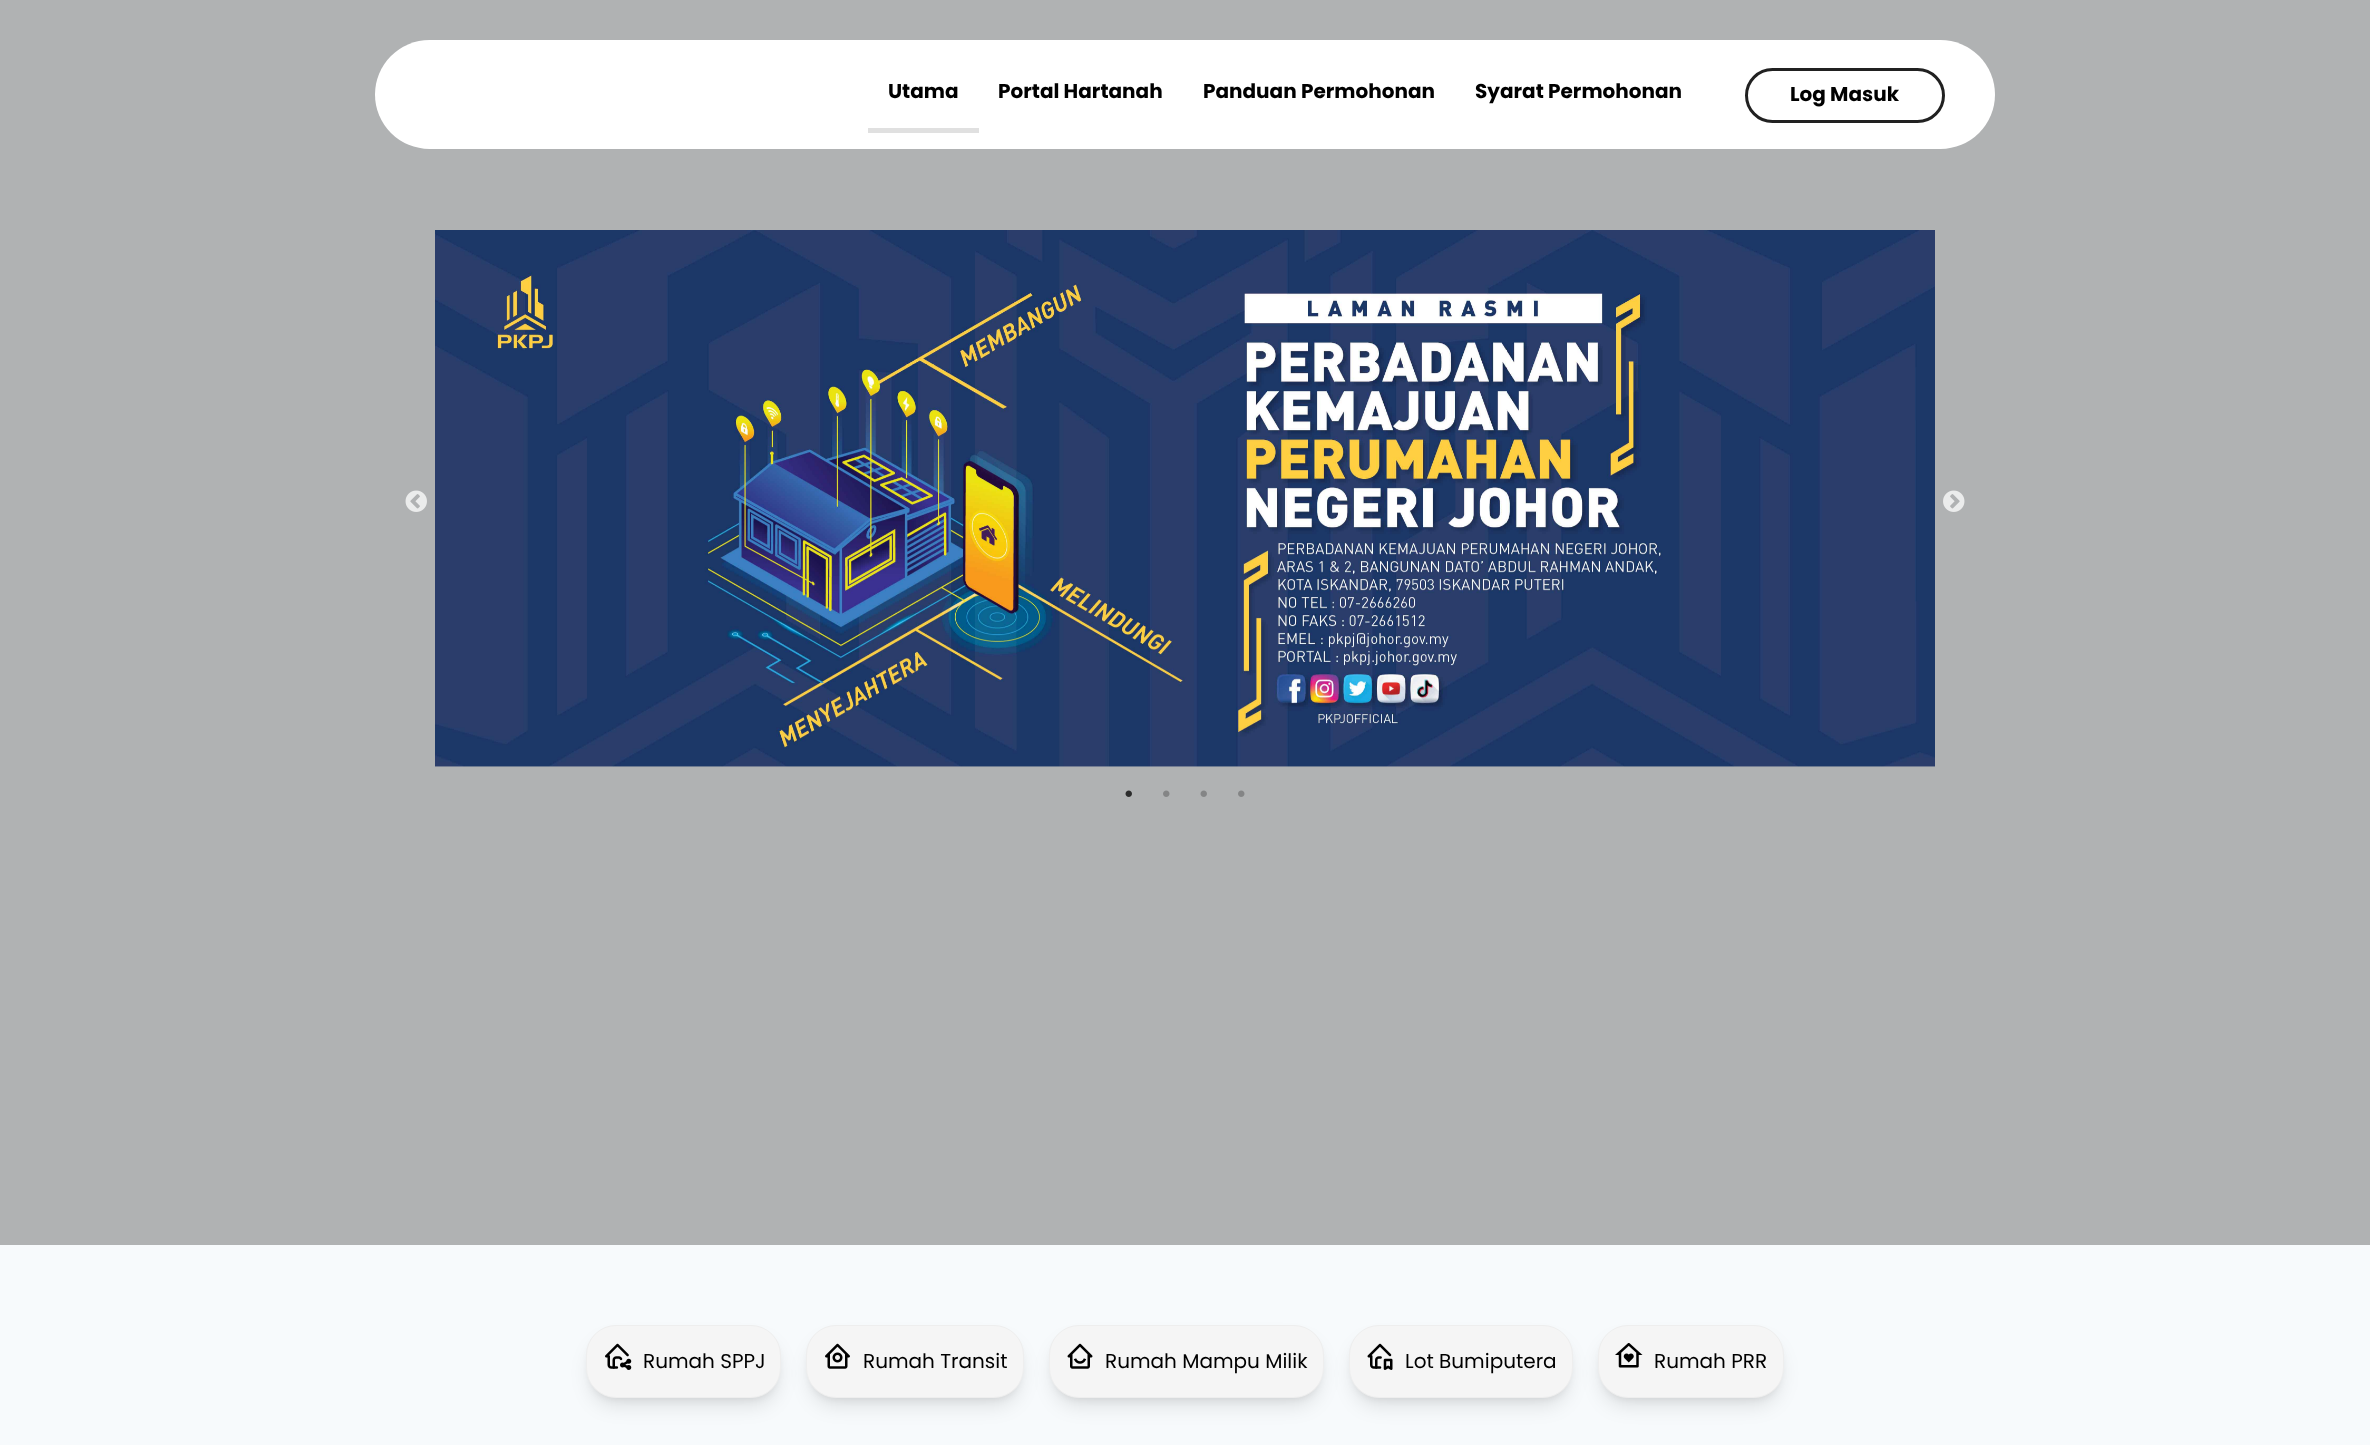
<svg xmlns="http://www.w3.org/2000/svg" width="2370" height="1445">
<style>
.a{font:bold 20px Poppins;fill:#000}
.b{font:20px Poppins;fill:#000}
</style>
<rect width="100%" height="100%" fill="#f7fafc"/>
<path fill="#b0b2b3" d="M0 0h2370v1245H0z"/>
<image href="1.png" x="405" y="490" width="22" height="22"/>
<image href="2.png" x="435" y="230" width="1500" height="537"/>
<image href="3.png" x="1943" y="490" width="22" height="22"/>
<image href="4.png" x="1125" y="790" width="7" height="7"/>
<image href="5.png" x="1163" y="790" width="7" height="7"/>
<image href="6.png" x="1200" y="790" width="7" height="7"/>
<image href="5.png" x="1238" y="790" width="7" height="7"/>
<rect fill="#fff" x="375" y="40" width="1620" height="109" rx="54.5"/>
<path fill="#e0e0e0" d="M868 128h111v5H868z"/>
<rect fill="none" stroke="#212121" stroke-width="3" x="1746.5" y="69.5" width="197" height="52" rx="26"/>
<rect fill="#0000001a" filter="blur(4px)" x="591" y="1335" width="185" height="63" rx="25"/>
<rect fill="#0000001a" filter="blur(9.5px)" x="590" y="1341" width="188" height="65" rx="26"/>
<rect fill="#f5f5f5" stroke="#eee" x="586.5" y="1325.5" width="194" height="72" rx="29.5"/>
<image href="7.png" x="605" y="1343" width="27" height="27"/>
<rect fill="#0000001a" filter="blur(4px)" x="811" y="1335" width="208" height="63" rx="25"/>
<rect fill="#0000001a" filter="blur(9.5px)" x="810" y="1341" width="210" height="65" rx="26"/>
<rect fill="#f5f5f5" stroke="#eee" x="806.5" y="1325.5" width="217" height="72" rx="29.5"/>
<image href="8.png" x="825" y="1343" width="25" height="26"/>
<rect fill="#0000001a" filter="blur(4px)" x="1054" y="1335" width="265" height="63" rx="25"/>
<rect fill="#0000001a" filter="blur(9.5px)" x="1053" y="1341" width="267" height="65" rx="26"/>
<rect fill="#f5f5f5" stroke="#eee" x="1049.5" y="1325.5" width="274" height="72" rx="29.5"/>
<image href="9.png" x="1067" y="1343" width="26" height="26"/>
<rect fill="#0000001a" filter="blur(4px)" x="1354" y="1335" width="214" height="63" rx="25"/>
<rect fill="#0000001a" filter="blur(9.5px)" x="1353" y="1341" width="216" height="65" rx="26"/>
<rect fill="#f5f5f5" stroke="#eee" x="1349.5" y="1325.5" width="223" height="72" rx="29.5"/>
<image href="10.png" x="1367" y="1343" width="26" height="27"/>
<rect fill="#0000001a" filter="blur(4px)" x="1603" y="1335" width="176" height="63" rx="25"/>
<rect fill="#0000001a" filter="blur(9.5px)" x="1601" y="1341" width="179" height="65" rx="26"/>
<rect fill="#f5f5f5" stroke="#eee" x="1598.5" y="1325.5" width="185" height="72" rx="29.5"/>
<image href="11.png" x="1615" y="1343" width="28" height="25"/>
<text class="a" x="888" y="98">Utama</text>
<text class="a" x="998" y="98">Portal Hartanah</text>
<text class="a" x="1203" y="98">Panduan Permohonan</text>
<text class="a" x="1475" y="98">Syarat Permohonan</text>
<text class="a" x="1790" y="101">Log Masuk</text>
<text class="b" x="643" y="1368">Rumah SPPJ</text>
<text class="b" x="863" y="1368">Rumah Transit</text>
<text class="b" x="1105" y="1368">Rumah Mampu Milik</text>
<text class="b" x="1405" y="1368">Lot Bumiputera</text>
<text class="b" x="1654" y="1368">Rumah PRR</text>
</svg>
